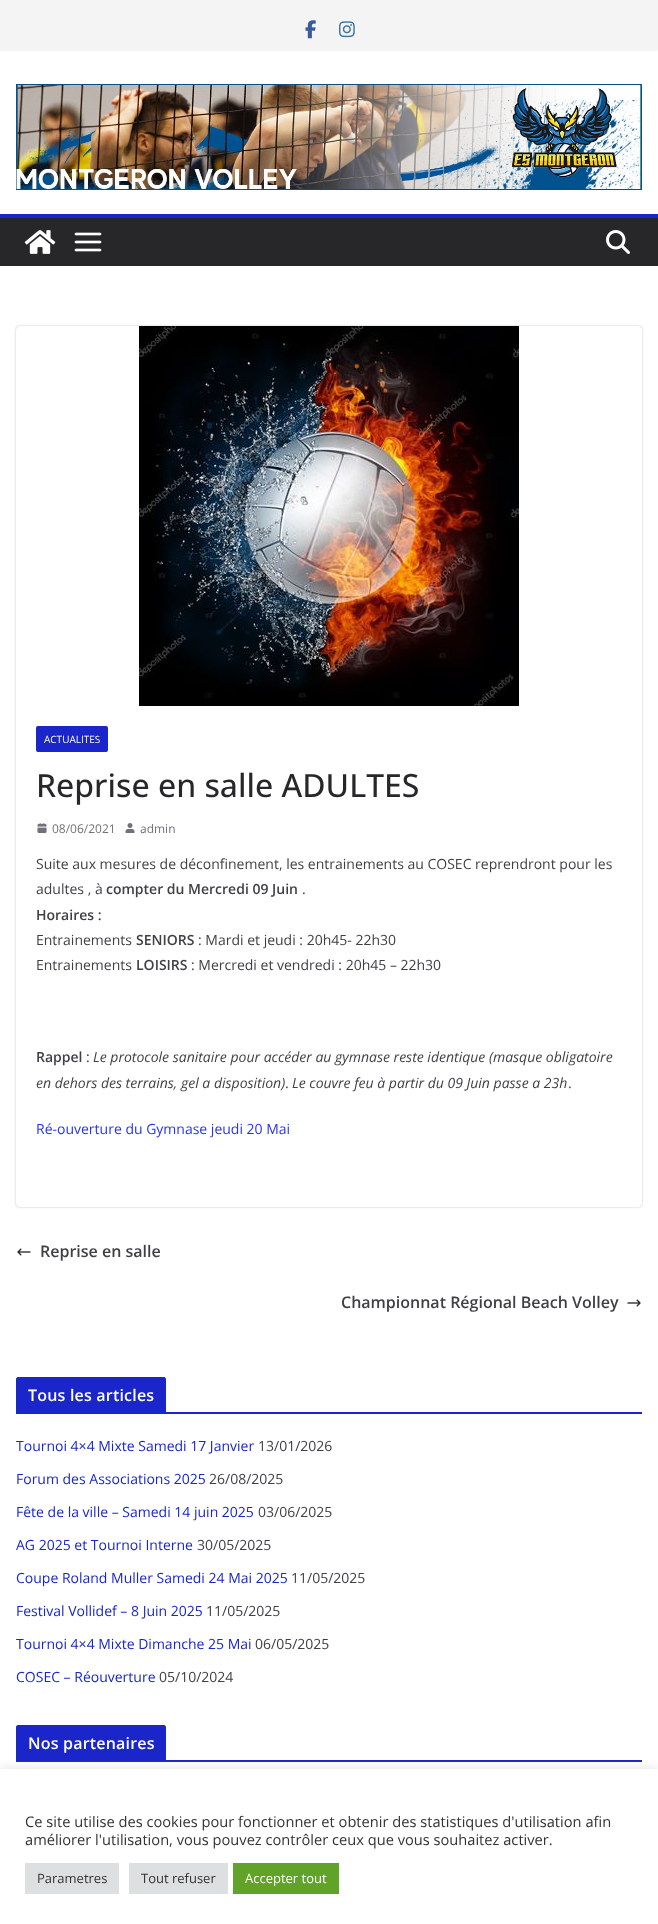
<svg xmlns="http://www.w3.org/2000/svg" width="658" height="1924">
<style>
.a{font:10px Open Sans;fill:#fff}
.b{font:500 32px Open Sans;fill:#27272a}
.c{font:12px Open Sans;fill:#71717a}
.d{font:14px Open Sans;fill:#3f3f46}
.e{font:600 14px Open Sans;fill:#3f3f46}
.f{font:italic 14px Open Sans;fill:#3f3f46}
.g{font:14px Open Sans;fill:#2932f0}
.h{font:600 16px Open Sans;fill:#3f3f46}
.i{font:600 16px Open Sans;letter-spacing:0.2px;fill:#fff}
.j{font:14px Open Sans;fill:#1a26c9}
.k{font:14.65px Open Sans;fill:#333}
.l{font:13px Open Sans;fill:#333}
.m{font:13px Open Sans;fill:#fff}
</style>
<defs>
<clipPath id="clip1"><path d="M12 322h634v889h-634zm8 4h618c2 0 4 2 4 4v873c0 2-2 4-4 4h-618c-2 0-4-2-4-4v-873c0-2 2-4 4-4z" clip-rule="evenodd"/></clipPath>
</defs>
<rect width="100%" height="100%" fill="#fff"/>
<path fill="#0000001a" filter="blur(1px)" d="M0 0h658v50H0z"/>
<path fill="#f4f4f5" d="M0 0h658v50H0z"/>
<image href="1.png" x="305" y="20" width="11" height="19"/>
<image href="2.png" x="339" y="21" width="16" height="17"/>
<image href="3.png" x="16" y="84" width="626" height="106"/>
<path fill="#27272a" d="M0 218h658v48H0z"/>
<path fill="#1a26c9" d="M0 214h658v4H0z"/>
<image href="4.png" x="24" y="230" width="32" height="24"/>
<image href="5.png" x="74" y="232" width="28" height="20"/>
<image href="6.png" x="606" y="230" width="24" height="24"/>
<g clip-path="url(#clip1)">
<rect fill="#0000003d" filter="blur(1px)" x="16" y="326" width="626" height="881" rx="4"/>
</g>
<image href="7.png" x="139" y="326" width="380" height="380"/>
<rect fill="#1a26c9" x="36" y="726" width="72" height="26" rx="2"/>
<image href="8.png" x="37" y="823" width="10" height="10"/>
<image href="9.png" x="125" y="823" width="10" height="10"/>
<image href="10.png" x="17" y="1248" width="14" height="8"/>
<image href="11.png" x="627" y="1299" width="14" height="8"/>
<path fill="#1a26c9" d="M16 1412h626v2H16z"/>
<path fill="#1a26c9" d="M18 1377h146c1 0 2 1 2 2v33h-150v-33c0-1 1-2 2-2z"/>
<path fill="#1a26c9" d="M16 1760h626v2H16z"/>
<path fill="#1a26c9" d="M18 1725h146c1 0 2 1 2 2v33h-150v-33c0-1 1-2 2-2z"/>
<path fill="#acabab4d" filter="blur(5px)" d="M0 1768h658v155H0z"/>
<path fill="#fff" d="M0 1769h658v155H0z"/>
<path fill="#dedfe0" d="M25 1863h94v31H25z"/>
<path fill="#dedfe0" d="M129 1863h99v31H129z"/>
<path fill="#61a229" d="M233 1863h106v31H233z"/>
<text class="a" x="44" y="743">ACTUALITES</text>
<text class="b" x="36" y="797">Reprise en salle ADULTES</text>
<text class="c" x="52" y="833">08/06/2021</text>
<text class="c" x="140" y="833">admin</text>
<text class="d" x="36" y="869">Suite aux mesures de déconfinement, les entrainements au COSEC reprendront pour les</text>
<text class="d" x="36" y="894">adultes , à</text>
<text class="e" x="106" y="894">compter du Mercredi 09 Juin</text>
<text class="d" x="302" y="894">.</text>
<text class="e" x="36" y="920">Horaires :</text>
<text class="d" x="36" y="945">Entrainements</text>
<text class="e" x="136" y="945">SENIORS</text>
<text class="d" x="198" y="945">: Mardi et jeudi : 20h45- 22h30</text>
<text class="d" x="36" y="970">Entrainements</text>
<text class="e" x="136" y="970">LOISIRS</text>
<text class="d" x="191" y="970">: Mercredi et vendredi : 20h45 – 22h30</text>
<text class="e" x="36" y="1062">Rappel</text>
<text class="d" x="86" y="1062">:</text>
<text class="f" x="93" y="1062">Le protocole sanitaire pour accéder au gymnase reste identique (masque obligatoire</text>
<text class="f" x="36" y="1088">en dehors des terrains, gel a disposition)</text>
<text class="d" x="285" y="1088">.</text>
<text class="f" x="292" y="1088">Le couvre feu à partir du 09 Juin passe a 23h</text>
<text class="d" x="568" y="1088">.</text>
<text class="g" x="36" y="1134">Ré-ouverture du Gymnase jeudi 20 Mai</text>
<text class="h" x="40" y="1257">Reprise en salle</text>
<text class="h" x="341" y="1308">Championnat Régional Beach Volley</text>
<text class="i" x="28" y="1401">Tous les articles</text>
<text class="j" x="16" y="1451">Tournoi 4×4 Mixte Samedi 17 Janvier</text>
<text class="d" x="258" y="1451">13/01/2026</text>
<text class="j" x="16" y="1484">Forum des Associations 2025</text>
<text class="d" x="209" y="1484">26/08/2025</text>
<text class="j" x="16" y="1517">Fête de la ville – Samedi 14 juin 2025</text>
<text class="d" x="258" y="1517">03/06/2025</text>
<text class="j" x="16" y="1550">AG 2025 et Tournoi Interne</text>
<text class="d" x="197" y="1550">30/05/2025</text>
<text class="j" x="16" y="1583">Coupe Roland Muller Samedi 24 Mai 2025</text>
<text class="d" x="291" y="1583">11/05/2025</text>
<text class="j" x="16" y="1616">Festival Vollidef – 8 Juin 2025</text>
<text class="d" x="206" y="1616">11/05/2025</text>
<text class="j" x="16" y="1649">Tournoi 4×4 Mixte Dimanche 25 Mai</text>
<text class="d" x="255" y="1649">06/05/2025</text>
<text class="j" x="16" y="1682">COSEC – Réouverture</text>
<text class="d" x="159" y="1682">05/10/2024</text>
<text class="i" x="28" y="1749">Nos partenaires</text>
<text class="k" x="25" y="1827">Ce site utilise des cookies pour fonctionner et obtenir des statistiques d'utilisation afin</text>
<text class="k" x="25" y="1845">améliorer l'utilisation, vous pouvez contrôler ceux que vous souhaitez activer.</text>
<text class="l" x="37" y="1883">Parametres</text>
<text class="l" x="141" y="1883">Tout refuser</text>
<text class="m" x="245" y="1883">Accepter tout</text>
</svg>
